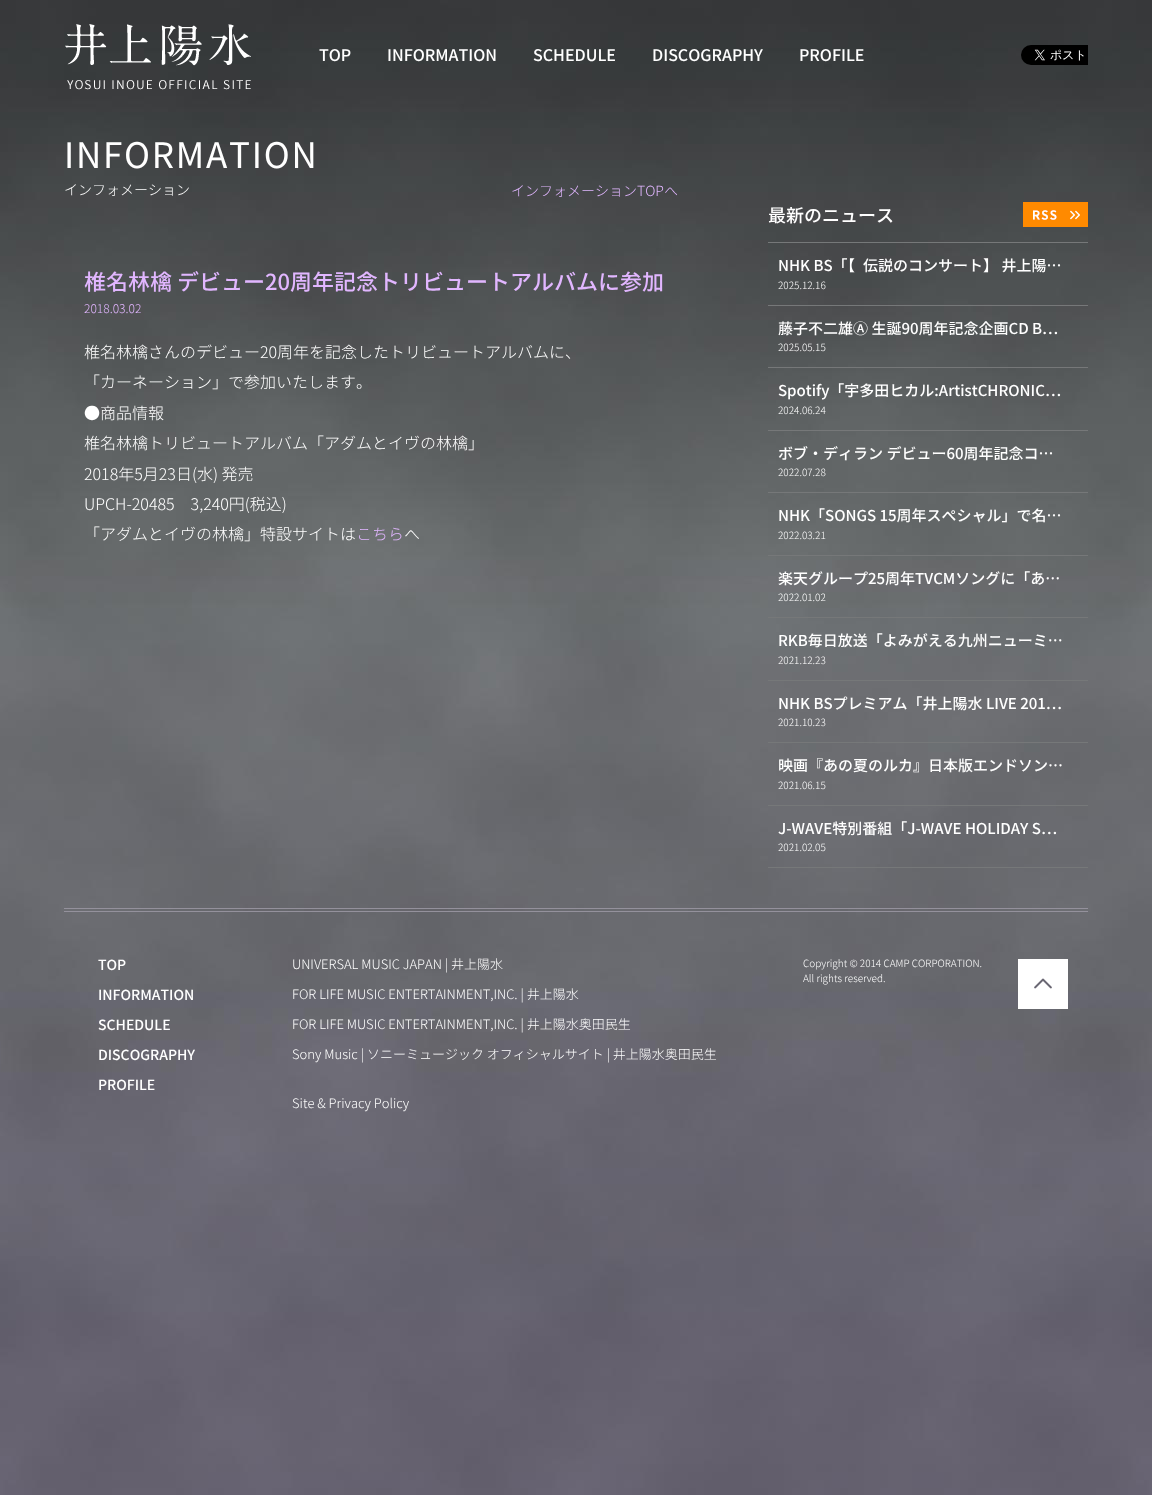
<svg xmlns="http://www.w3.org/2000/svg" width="1152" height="1495">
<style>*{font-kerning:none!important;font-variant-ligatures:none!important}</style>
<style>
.a{font:500 16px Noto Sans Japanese;fill:#fff}
.b{font:35px Noto Sans Japanese;letter-spacing:1.75px;fill:#fff}
.c{font:300 14px Noto Sans Japanese;fill:#fff}
.d{font:300 14px Noto Sans Japanese;fill:#e1b6ff}
.e{font:500 22px Noto Sans Japanese;fill:#e1b6ff}
.f{font:300 12px Noto Sans Japanese;fill:#e1b6ff}
.g{font:300 16px Noto Sans Japanese;fill:#fff}
.h{font:300 16px Noto Sans Japanese;fill:#e1b6ff}
.i{font:500 18px Noto Sans Japanese;fill:#fff}
.j{font:500 15px Noto Sans Japanese;fill:#fff}
.k{font:300 10px Noto Sans Japanese;fill:#fff}
.l{font:500 14px Noto Sans Japanese;fill:#fff}
.m{font:300 13px Noto Sans Japanese;fill:#fff}
</style>
<rect width="100%" height="100%" fill="#fff"/>
<image href="1.png" x="0" y="0" width="1152" height="1495"/>
<image href="2.png" x="65" y="24" width="186" height="66"/>
<image href="3.png" x="1021" y="45" width="67" height="20"/>
<image href="4.png" x="1023" y="202" width="65" height="25"/>
<path fill="#767879" d="M768 242h320v1H768z"/>
<path fill="#767879" d="M768 305h320v1H768z"/>
<path fill="#767879" d="M768 367h320v1H768z"/>
<path fill="#767879" d="M768 430h320v1H768z"/>
<path fill="#767879" d="M768 492h320v1H768z"/>
<path fill="#767879" d="M768 555h320v1H768z"/>
<path fill="#767879" d="M768 617h320v1H768z"/>
<path fill="#767879" d="M768 680h320v1H768z"/>
<path fill="#767879" d="M768 742h320v1H768z"/>
<path fill="#767879" d="M768 805h320v1H768z"/>
<path fill="#767879" d="M768 867h320v1H768z"/>
<path fill="#94919c" d="M64 908h1024v1H64z"/>
<path fill="#94919c" d="M64 911h1024v1H64z"/>
<image href="5.png" x="1018" y="959" width="50" height="50"/>
<text class="a" x="319" y="61">TOP</text>
<text class="a" x="387" y="61">INFORMATION</text>
<text class="a" x="533" y="61">SCHEDULE</text>
<text class="a" x="652" y="61">DISCOGRAPHY</text>
<text class="a" x="799" y="61">PROFILE</text>
<text class="b" x="64" y="168">INFORMATION</text>
<text class="c" x="64" y="195">インフォメーション</text>
<text class="d" x="511" y="196">インフォメーションTOPへ</text>
<text class="e" x="84" y="290">椎名林檎 デビュー20周年記念トリビュートアルバムに参加</text>
<text class="f" x="84" y="313">2018.03.02</text>
<text class="g" x="84" y="358">椎名林檎さんのデビュー20周年を記念したトリビュートアルバムに、</text>
<text class="g" x="84" y="388">「カーネーション」で参加いたします。</text>
<text class="g" x="84" y="419">●商品情報</text>
<text class="g" x="84" y="449">椎名林檎トリビュートアルバム「アダムとイヴの林檎」</text>
<text class="g" x="84" y="480">2018年5月23日(水) 発売</text>
<text class="g" x="84" y="510">UPCH-20485　3,240円(税込)</text>
<text class="g" x="84" y="540">「アダムとイヴの林檎」特設サイトは</text>
<text class="h" x="356" y="540">こちら</text>
<text class="g" x="404" y="540">へ</text>
<text class="i" x="768" y="222">最新のニュース</text>
<text class="j" x="778" y="271">NHK BS「【</text>
<text class="j" x="863" y="271">伝説のコンサート】 井上陽…</text>
<text class="k" x="778" y="289">2025.12.16</text>
<text class="j" x="778" y="334">藤子不二雄Ⓐ 生誕90周年記念企画CD B…</text>
<text class="k" x="778" y="351">2025.05.15</text>
<text class="j" x="778" y="396">Spotify「宇多田ヒカル:ArtistCHRONIC…</text>
<text class="k" x="778" y="414">2024.06.24</text>
<text class="j" x="778" y="459">ボブ・ディラン デビュー60周年記念コ…</text>
<text class="k" x="778" y="476">2022.07.28</text>
<text class="j" x="778" y="521">NHK「SONGS 15周年スペシャル」で名…</text>
<text class="k" x="778" y="539">2022.03.21</text>
<text class="j" x="778" y="584">楽天グループ25周年TVCMソングに「あ…</text>
<text class="k" x="778" y="601">2022.01.02</text>
<text class="j" x="778" y="646">RKB毎日放送「よみがえる九州ニューミ…</text>
<text class="k" x="778" y="664">2021.12.23</text>
<text class="j" x="778" y="709">NHK BSプレミアム「井上陽水 LIVE 201…</text>
<text class="k" x="778" y="726">2021.10.23</text>
<text class="j" x="778" y="771">映画『あの夏のルカ』日本版エンドソン…</text>
<text class="k" x="778" y="789">2021.06.15</text>
<text class="j" x="778" y="834">J-WAVE特別番組「J-WAVE HOLIDAY S…</text>
<text class="k" x="778" y="851">2021.02.05</text>
<text class="l" x="98" y="970">TOP</text>
<text class="l" x="98" y="1000">INFORMATION</text>
<text class="l" x="98" y="1030">SCHEDULE</text>
<text class="l" x="98" y="1060">DISCOGRAPHY</text>
<text class="l" x="98" y="1090">PROFILE</text>
<text class="m" x="292" y="969">UNIVERSAL MUSIC JAPAN | 井上陽水</text>
<text class="m" x="292" y="999">FOR LIFE MUSIC ENTERTAINMENT,INC. | 井上陽水</text>
<text class="m" x="292" y="1029">FOR LIFE MUSIC ENTERTAINMENT,INC. | 井上陽水奥田民生</text>
<text class="m" x="292" y="1059">Sony Music | ソニーミュージック オフィシャルサイト | 井上陽水奥田民生</text>
<text class="m" x="292" y="1108">Site &amp; Privacy Policy</text>
<text class="k" x="803" y="967">Copyright © 2014 CAMP CORPORATION.</text>
<text class="k" x="803" y="982">All rights reserved.</text>
</svg>
